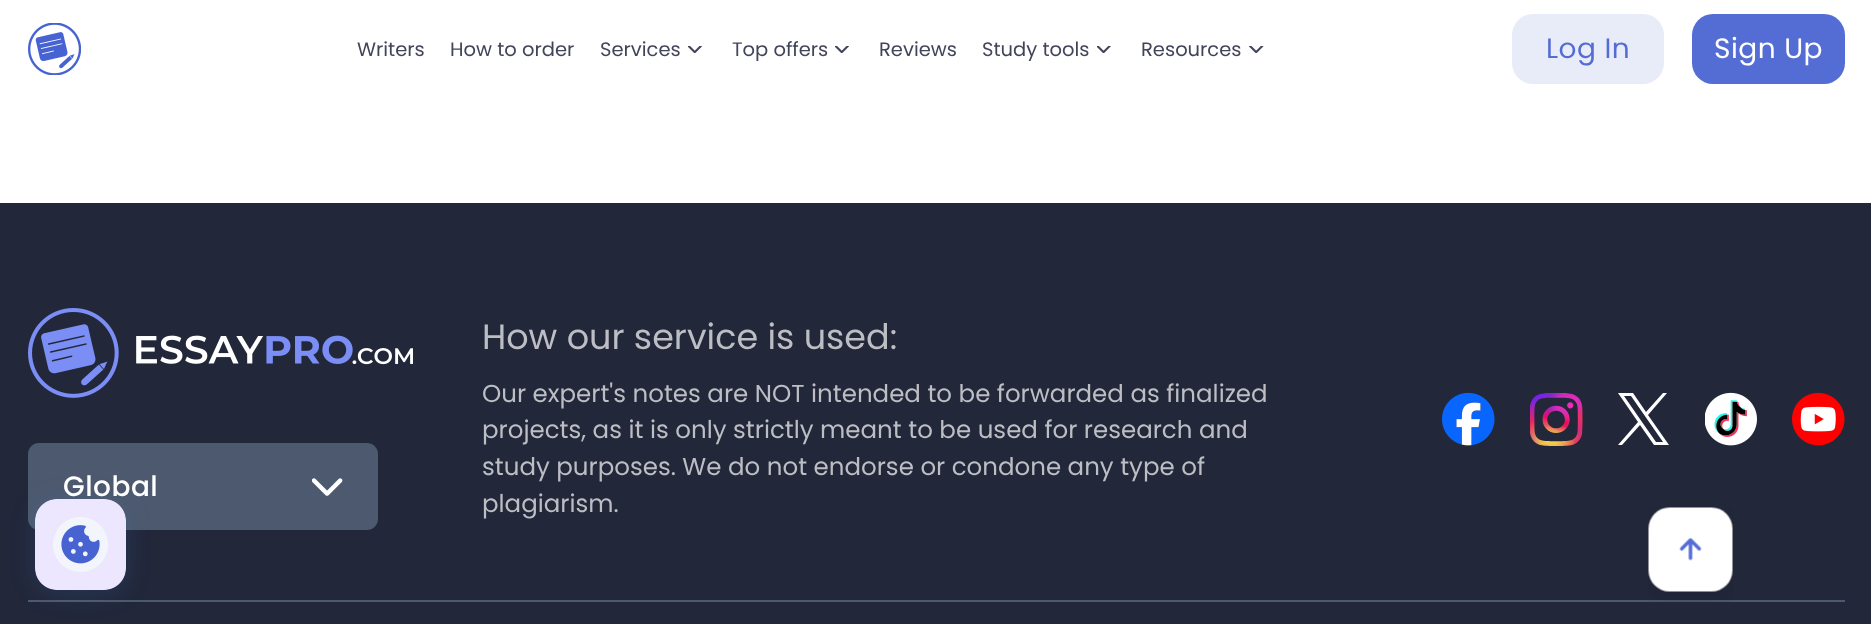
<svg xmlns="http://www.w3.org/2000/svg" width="1871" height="624">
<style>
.a{font:19.5px Poppins;fill:#42445a}
.b{font:28px Poppins;letter-spacing:0.5px;fill:#546dd4}
.c{font:28px Poppins;letter-spacing:0.5px;fill:#fff}
.d{font:500 28px Poppins;letter-spacing:0.5px;fill:#fff}
.e{font:35px Poppins;fill:#bdbec4}
.f{font:24.5px Poppins;fill:#bdbec4}
</style>
<rect width="100%" height="100%" fill="#fff"/>
<image href="1.png" x="28" y="23" width="53" height="52"/>
<image href="2.png" x="688" y="46" width="14" height="7"/>
<image href="2.png" x="835" y="46" width="14" height="7"/>
<image href="3.png" x="1097" y="46" width="14" height="7"/>
<image href="4.png" x="1248" y="46" width="16" height="7"/>
<rect fill="#e8ecf9" x="1512" y="14" width="152" height="70" rx="21"/>
<rect fill="#546dd4" x="1692" y="14" width="153" height="70" rx="21"/>
<path fill="#22273a" d="M0 203h1871v421H0z"/>
<image href="5.png" x="28" y="308" width="385" height="90"/>
<rect fill="#4d596e" x="28" y="443" width="350" height="87" rx="11"/>
<image href="6.png" x="312" y="478" width="31" height="18"/>
<image href="7.png" x="1442" y="392" width="53" height="54"/>
<image href="8.png" x="1530" y="393" width="53" height="53"/>
<path fill="#fff" d="M1648 415l19-22h-4l-17 19l-13-19h-15l20 29l-20 23h4l18-20l14 20h15zm-6 7l-18-26h7l32 46h-7z"/>
<image href="9.png" x="1705" y="392" width="52" height="54"/>
<image href="10.png" x="1792" y="392" width="53" height="54"/>
<path fill="#4d596e" d="M28 600h1817v2H28z"/>
<image href="11.png" x="1648" y="507" width="85" height="95"/>
<rect fill="#367fd32e" filter="blur(12px)" x="35" y="502" width="91" height="91" rx="21"/>
<image href="12.png" x="35" y="499" width="91" height="91"/>
<text class="a" x="357" y="56">Writers</text>
<text class="a" x="450" y="56">How to order</text>
<text class="a" x="600" y="56">Services</text>
<text class="a" x="732" y="56">Top offers</text>
<text class="a" x="879" y="56">Reviews</text>
<text class="a" x="982" y="56">Study tools</text>
<text class="a" x="1141" y="56">Resources</text>
<text class="b" x="1546" y="58">Log In</text>
<text class="c" x="1714" y="58">Sign Up</text>
<text class="d" x="63" y="496">Global</text>
<text class="e" x="482" y="349">How our service is used:</text>
<text class="f" x="482" y="402">Our expert's notes are NOT intended to be forwarded as finalized</text>
<text class="f" x="482" y="438">projects, as it is only strictly meant to be used for research and</text>
<text class="f" x="482" y="475">study purposes. We do not endorse or condone any type of</text>
<text class="f" x="482" y="512">plagiarism.</text>
</svg>
